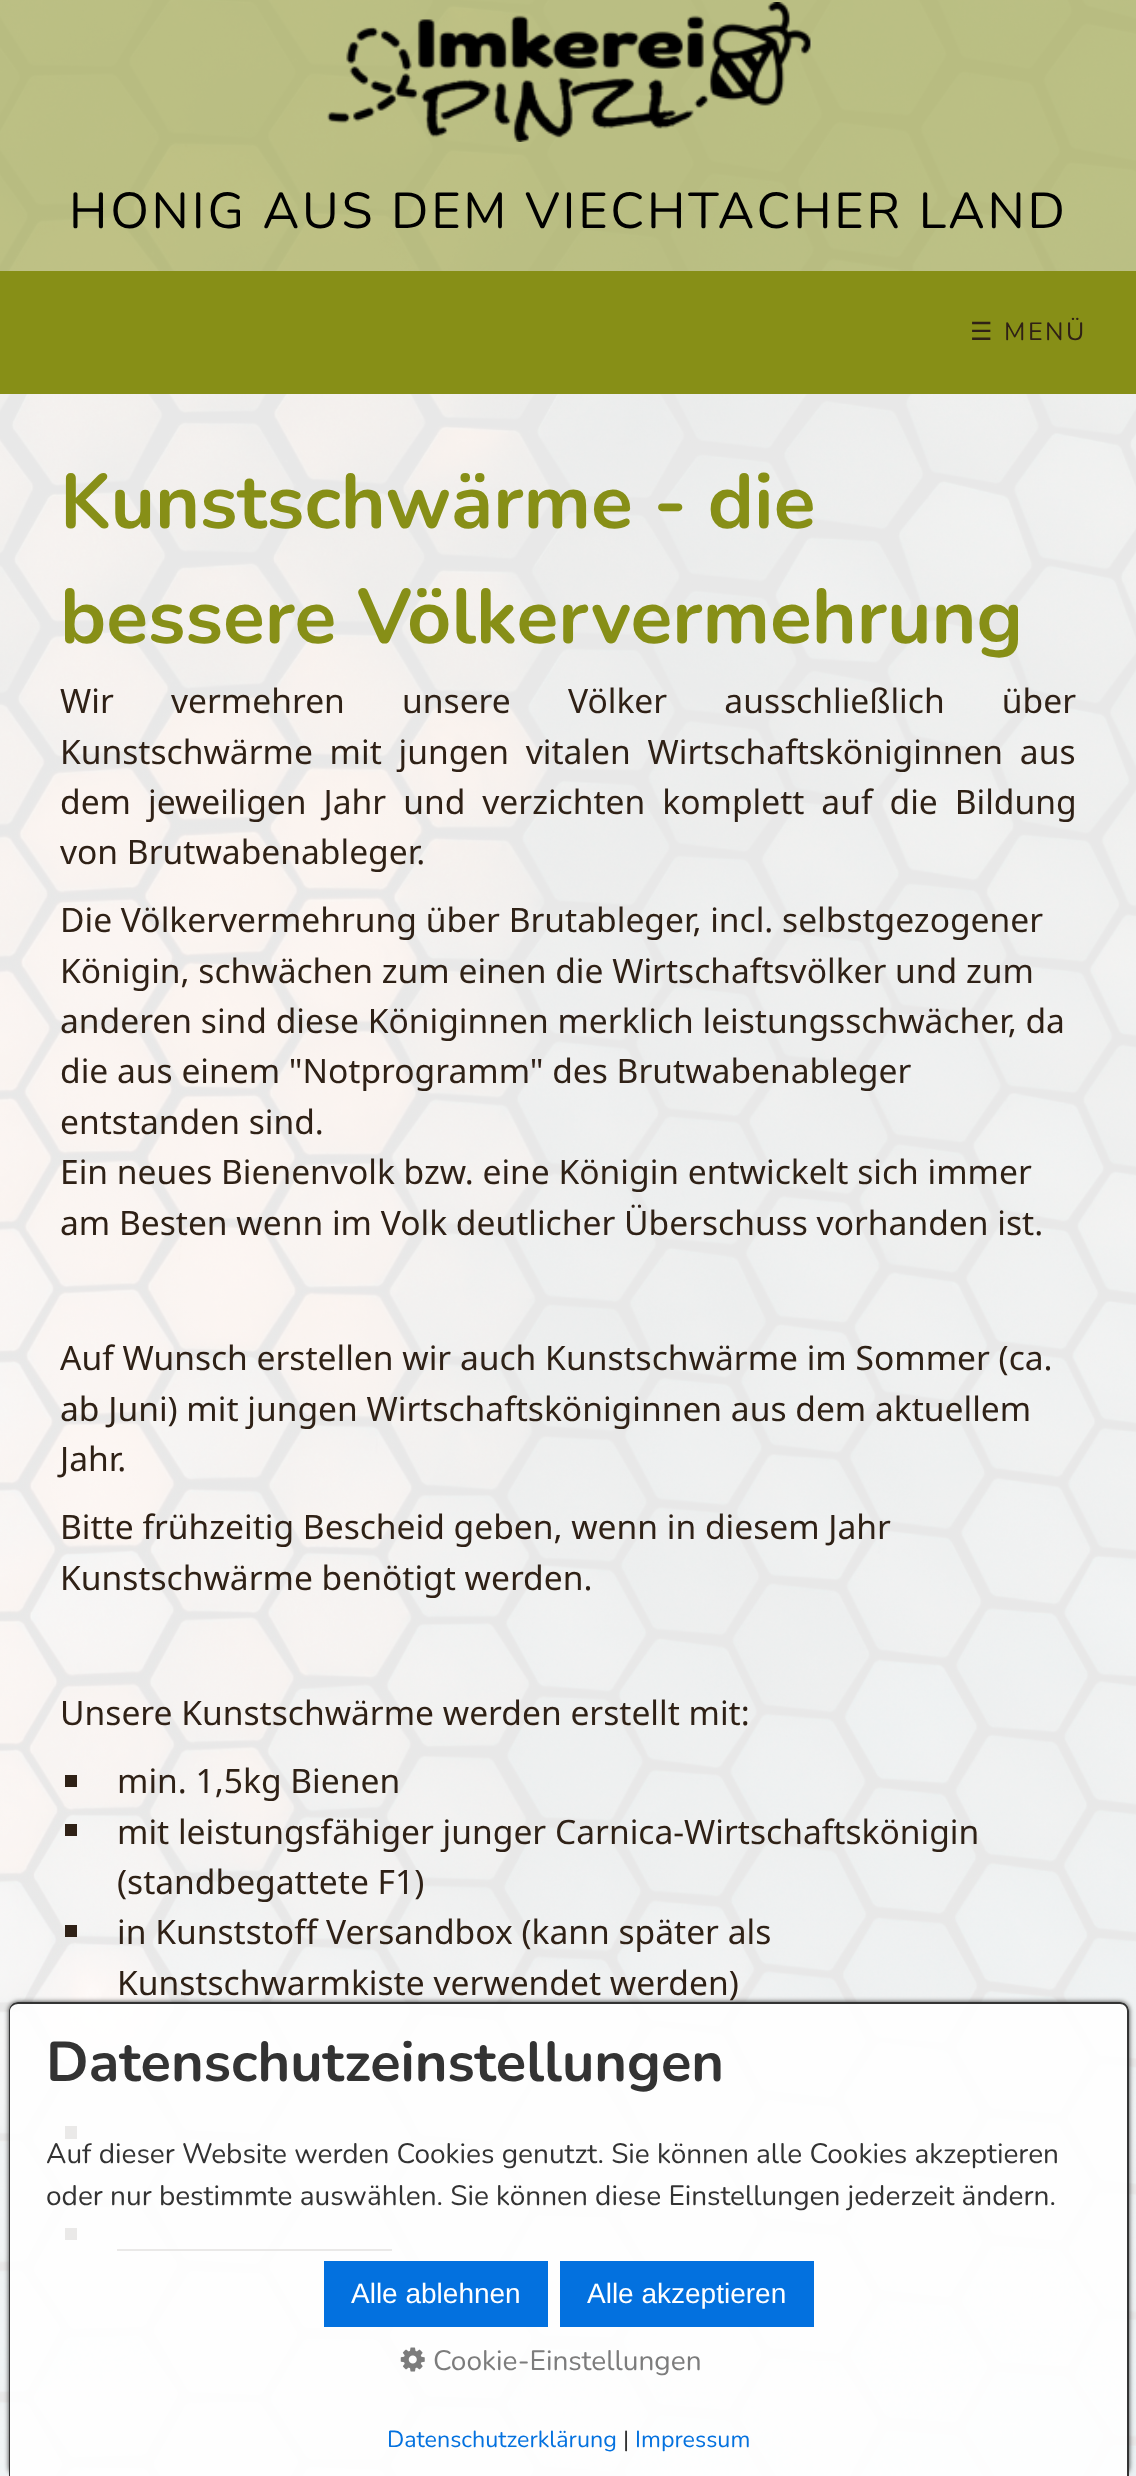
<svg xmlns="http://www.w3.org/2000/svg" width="1136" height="2476">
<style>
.a{font:50.4px Nunito;letter-spacing:2.8px;fill:#000}
.b{font:25px DejaVu Sans;letter-spacing:2.5px;fill:#2f2116}
.c{font:25px Nunito;letter-spacing:2.5px;fill:#2f2116}
.d{font:bold 77px Nunito;fill:#878f17}
.e{font:33.6px Noto Sans;fill:#2f2116}
.f{font:bold 56px Nunito;fill:#333}
.g{font:28px Nunito;fill:#333}
.h{font:28px Liberation Sans;fill:#fff}
.i{font:28px Nunito;fill:#7c7c7c}
.j{font:23.25px Nunito;fill:#0371df}
.k{font:23.25px Nunito;fill:#333}
</style>
<defs>
<clipPath id="clip1"><path d="M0 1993h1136v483h-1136zm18 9h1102c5 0 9 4 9 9v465h-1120v-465c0-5 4-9 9-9z" clip-rule="evenodd"/></clipPath>
</defs>
<rect width="100%" height="100%" fill="#fff"/>
<image href="1.png" x="0" y="0" width="1136" height="2476"/>
<path fill="#878f177d" d="M0 0h1136v271H0z"/>
<image href="2.png" x="327" y="2" width="485" height="140"/>
<path fill="#878f17" d="M0 271h1136v123H0z"/>
<path fill="#2f2116" d="M65 1775h12v12H65z"/>
<path fill="#2f2116" d="M65 1824h12v12H65z"/>
<path fill="#2f2116" d="M65 1925h12v12H65z"/>
<path fill="#2f2116" d="M65 2126h12v13H65z"/>
<path fill="#2f2116" d="M65 2228h12v12H65z"/>
<path fill="#2f2116" d="M117 2249h275v2H117z"/>
<g clip-path="url(#clip1)">
<rect fill="#000000cc" filter="blur(2.5px)" x="9" y="2002" width="1120" height="474" rx="9"/>
</g>
<path fill="#ffffffe6" d="M18 2002h1102c5 0 9 4 9 9v465h-1120v-465c0-5 4-9 9-9z"/>
<path fill="#333" fill-rule="evenodd" d="M18 2002h1102c5 0 9 4 9 9v465h-1120v-465c0-5 4-9 9-9zm0 2h1102c4 0 7 3 7 7v465h-1117v-465c0-4 4-7 8-7z"/>
<path fill="#0371df" d="M324 2261h224v66H324z"/>
<path fill="#0371df" d="M560 2261h254v66H560z"/>
<image href="3.png" x="400" y="2347" width="25" height="25"/>
<text class="a" x="69" y="228">HONIG AUS DEM VIECHTACHER LAND</text>
<text class="b" x="970" y="340">☰</text>
<text class="c" x="1004" y="340">MENÜ</text>
<text class="d" x="60" y="528">Kunstschwärme - die</text>
<text class="d" x="60" y="643">bessere Völkervermehrung</text>
<text class="e" x="60" y="713" word-spacing="48.5">Wir vermehren unsere Völker ausschließlich über</text>
<text class="e" x="60" y="764" word-spacing="8">Kunstschwärme mit jungen vitalen Wirtschaftsköniginnen aus</text>
<text class="e" x="60" y="814" word-spacing="8.25">dem jeweiligen Jahr und verzichten komplett auf die Bildung</text>
<text class="e" x="60" y="864">von Brutwabenableger.</text>
<text class="e" x="60" y="932">Die Völkervermehrung über Brutableger, incl. selbstgezogener</text>
<text class="e" x="60" y="983">Königin, schwächen zum einen die Wirtschaftsvölker und zum</text>
<text class="e" x="60" y="1033">anderen sind diese Königinnen merklich leistungsschwächer, da</text>
<text class="e" x="60" y="1083">die aus einem "Notprogramm" des Brutwabenableger</text>
<text class="e" x="60" y="1134">entstanden sind.</text>
<text class="e" x="60" y="1184">Ein neues Bienenvolk bzw. eine Königin entwickelt sich immer</text>
<text class="e" x="60" y="1235">am Besten wenn im Volk deutlicher Überschuss vorhanden ist.</text>
<text class="e" x="60" y="1370">Auf Wunsch erstellen wir auch Kunstschwärme im Sommer (ca.</text>
<text class="e" x="60" y="1421">ab Juni) mit jungen Wirtschaftsköniginnen aus dem aktuellem</text>
<text class="e" x="60" y="1471">Jahr.</text>
<text class="e" x="60" y="1539">Bitte frühzeitig Bescheid geben, wenn in diesem Jahr</text>
<text class="e" x="60" y="1590">Kunstschwärme benötigt werden.</text>
<text class="e" x="60" y="1725">Unsere Kunstschwärme werden erstellt mit:</text>
<text class="e" x="117" y="1793">min. 1,5kg Bienen</text>
<text class="e" x="117" y="1844">mit leistungsfähiger junger Carnica-Wirtschaftskönigin</text>
<text class="e" x="117" y="1894">(standbegattete F1)</text>
<text class="e" x="117" y="1944">in Kunststoff Versandbox (kann später als</text>
<text class="e" x="117" y="1995">Kunstschwarmkiste verwendet werden)</text>
<text class="f" x="46" y="2081">Datenschutzeinstellungen</text>
<text class="g" x="46" y="2163">Auf dieser Website werden Cookies genutzt. Sie können alle Cookies akzeptieren</text>
<text class="g" x="46" y="2205">oder nur bestimmte auswählen. Sie können diese Einstellungen jederzeit ändern.</text>
<text class="h" x="351" y="2303">Alle ablehnen</text>
<text class="h" x="587" y="2303">Alle akzeptieren</text>
<text class="i" x="433" y="2370">Cookie-Einstellungen</text>
<text class="j" x="387" y="2447">Datenschutzerklärung</text>
<text class="k" x="623" y="2447">|</text>
<text class="j" x="635" y="2447">Impressum</text>
</svg>
